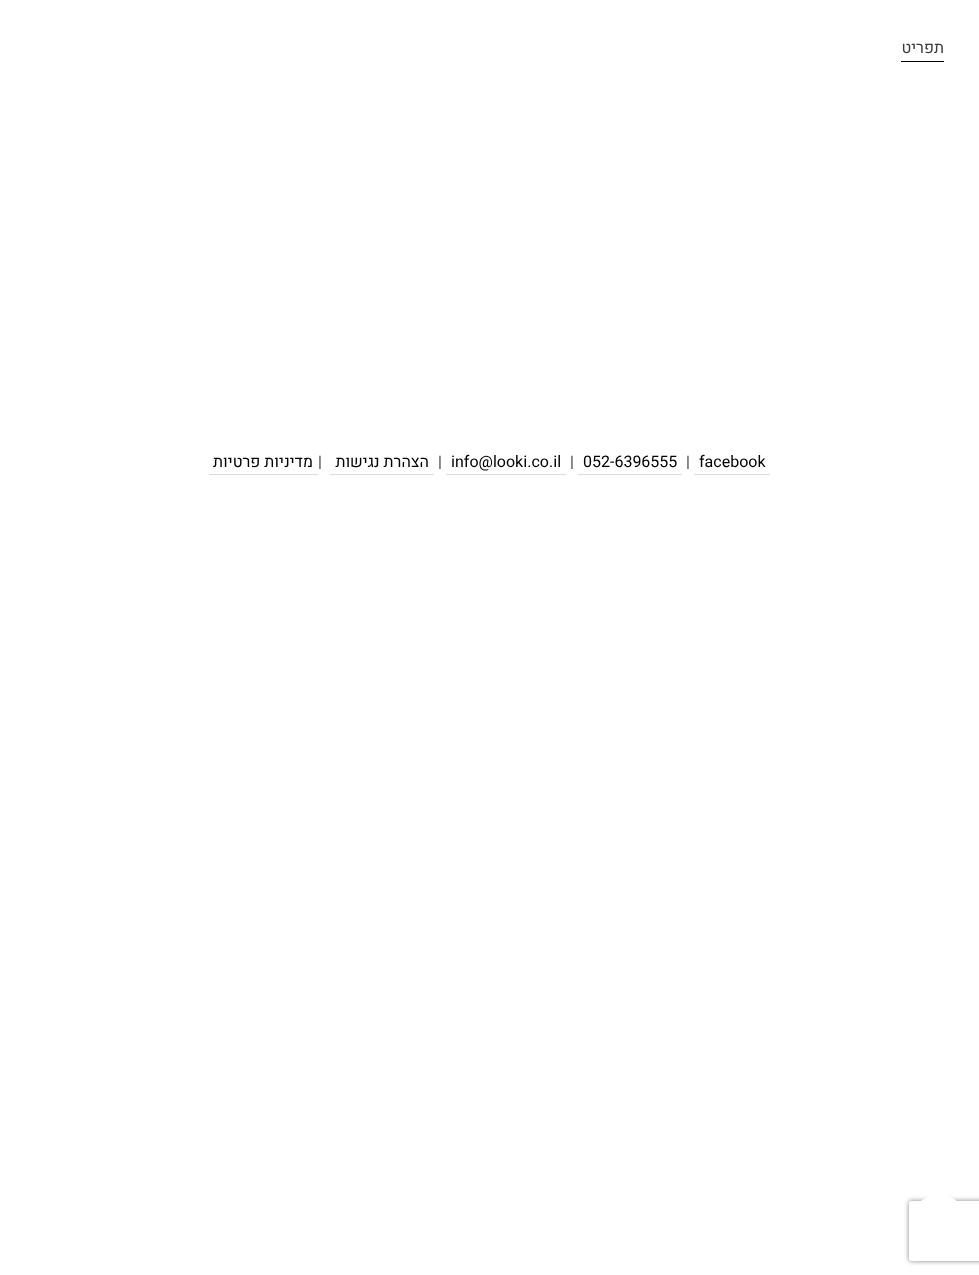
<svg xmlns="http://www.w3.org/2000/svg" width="979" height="1275">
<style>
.a{font:16px Heebo;direction:rtl;fill:#3c3c3b}
.b{font:16px Heebo;direction:rtl;fill:#000}
.c{font:16px Heebo;fill:#3c3c3b}
.d{font:16px Heebo;fill:#000}
</style>
<defs>
<clipPath id="clip1"><path d="M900 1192h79v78h-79zm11 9h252c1 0 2 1 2 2v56c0 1-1 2-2 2h-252c-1 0-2-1-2-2v-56c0-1 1-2 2-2z" clip-rule="evenodd"/></clipPath>
</defs>
<rect width="100%" height="100%" fill="#fff"/>
<path fill="#000" d="M901 61h43v1H901z"/>
<path fill="#dbdbdb" d="M209 474h109v1H209z"/>
<path fill="#dbdbdb" d="M330 474h104v1H330z"/>
<path fill="#dbdbdb" d="M446 474h120v1H446z"/>
<path fill="#dbdbdb" d="M578 474h104v1H578z"/>
<path fill="#dbdbdb" d="M694 474h76v1H694z"/>
<g clip-path="url(#clip1)">
<rect fill="#808080" filter="blur(2.5px)" x="909" y="1201" width="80" height="60" rx="2"/>
</g>
<circle fill="#fff" stroke="#fff" stroke-width="3" cx="939" cy="1225" r="28.5"/>
<text class="a" x="944" y="53">תפריט</text>
<text class="b" x="313" y="467">מדיניות פרטיות</text>
<text class="c" x="318" y="467">|</text>
<text class="b" x="429" y="467">הצהרת נגישות</text>
<text class="c" x="438" y="467">|</text>
<text class="d" x="451" y="467">info@looki.co.il</text>
<text class="c" x="570" y="467">|</text>
<text class="d" x="583" y="467">052-6396555</text>
<text class="c" x="686" y="467">|</text>
<text class="d" x="699" y="467">facebook</text>
</svg>
